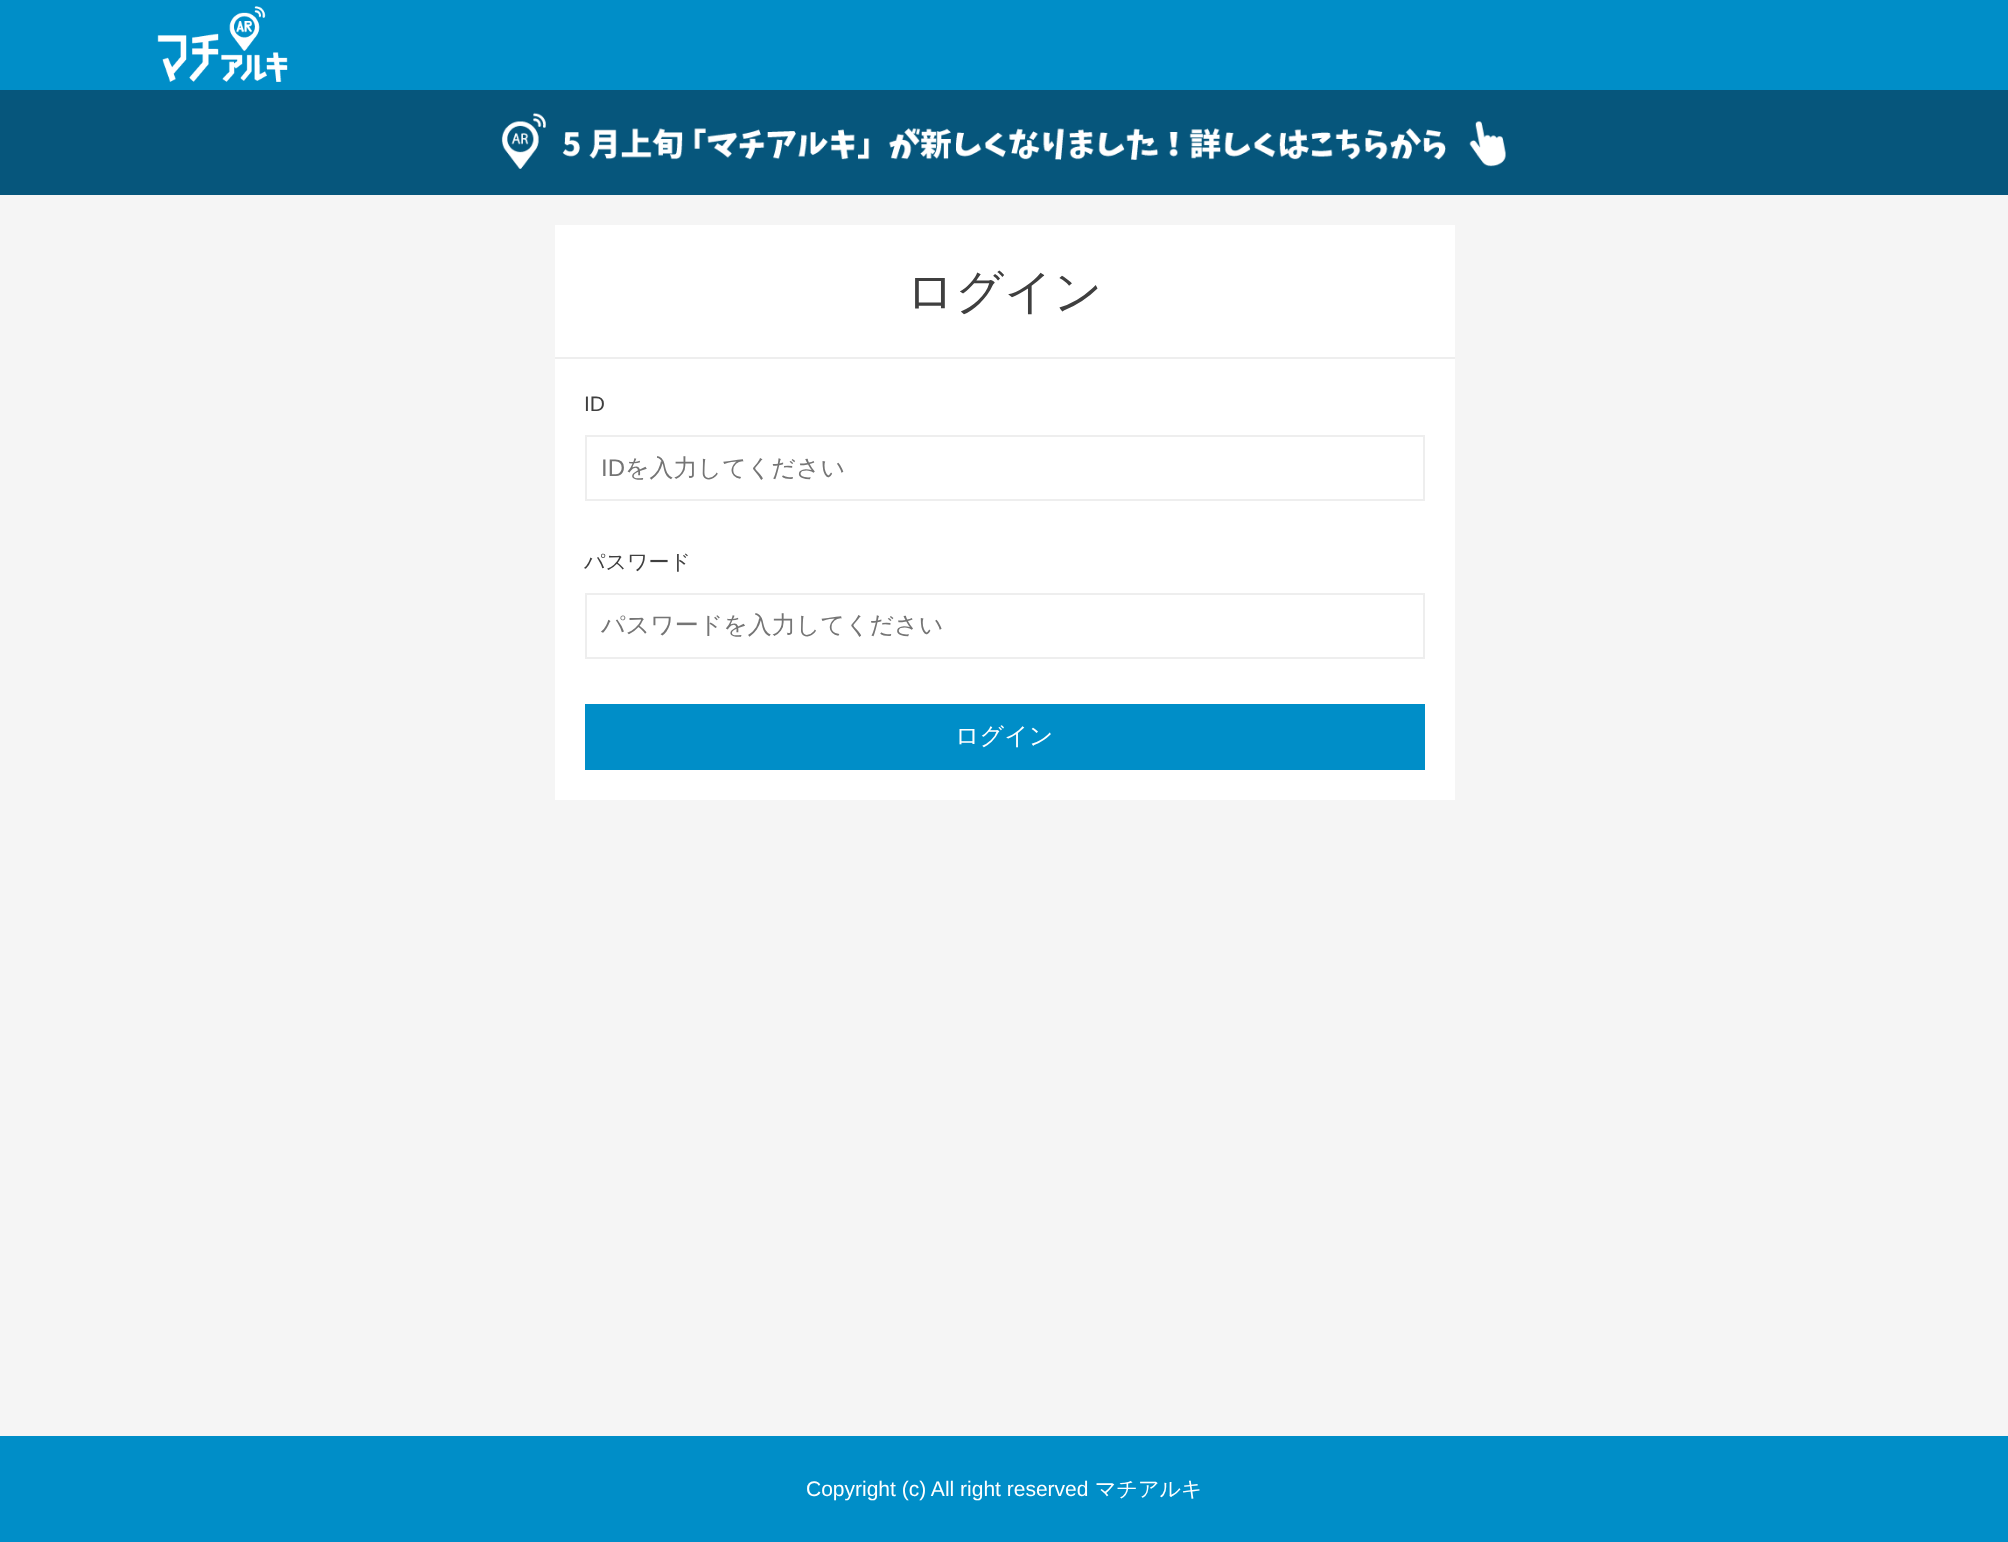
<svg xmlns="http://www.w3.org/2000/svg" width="2008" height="1542">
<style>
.a{font:500 48px WenQuanYi Zen Hei;fill:#3f3f3f}
.b{font:21px Liberation Sans;fill:#3f3f3f}
.c{font:24px Liberation Sans;fill:#757575}
.d{font:500 24px WenQuanYi Zen Hei;fill:#757575}
.e{font:500 21px WenQuanYi Zen Hei;fill:#3f3f3f}
.f{font:500 24px WenQuanYi Zen Hei;fill:#fff}
.g{font:21px Liberation Sans;fill:#fff}
.h{font:500 21px WenQuanYi Zen Hei;fill:#fff}
</style>
<rect width="100%" height="100%" fill="#f5f5f5"/>
<path fill="#008ec8" d="M0 0h2008v90H0z"/>
<image href="1.png" x="157" y="6" width="131" height="76"/>
<path fill="#06567c" d="M0 90h2008v105H0z"/>
<image href="2.png" x="501" y="112" width="1005" height="57"/>
<path fill="#fff" d="M555 225h900v575H555z"/>
<path fill="#eee" d="M555 357h900v2H555z"/>
<path fill="none" stroke="#eee" stroke-width="2" d="M586 436h838v64H586z"/>
<path fill="none" stroke="#eee" stroke-width="2" d="M586 594h838v64H586z"/>
<path fill="#008ec8" d="M585 704h840v66H585z"/>
<path fill="#008ec8" d="M0 1436h2008v106H0z"/>
<text class="a" x="906" y="308">ログイン</text>
<text class="b" x="584" y="411">ID</text>
<text class="c" x="601" y="476">ID</text>
<text class="d" x="625" y="476">を入力してください</text>
<text class="e" x="584" y="569">パスワード</text>
<text class="d" x="601" y="633">パスワードを入力してください</text>
<text class="f" x="955" y="744">ログイン</text>
<text class="g" x="806" y="1496">Copyright (c) All right reserved</text>
<text class="h" x="1095" y="1496">マチアルキ</text>
</svg>
